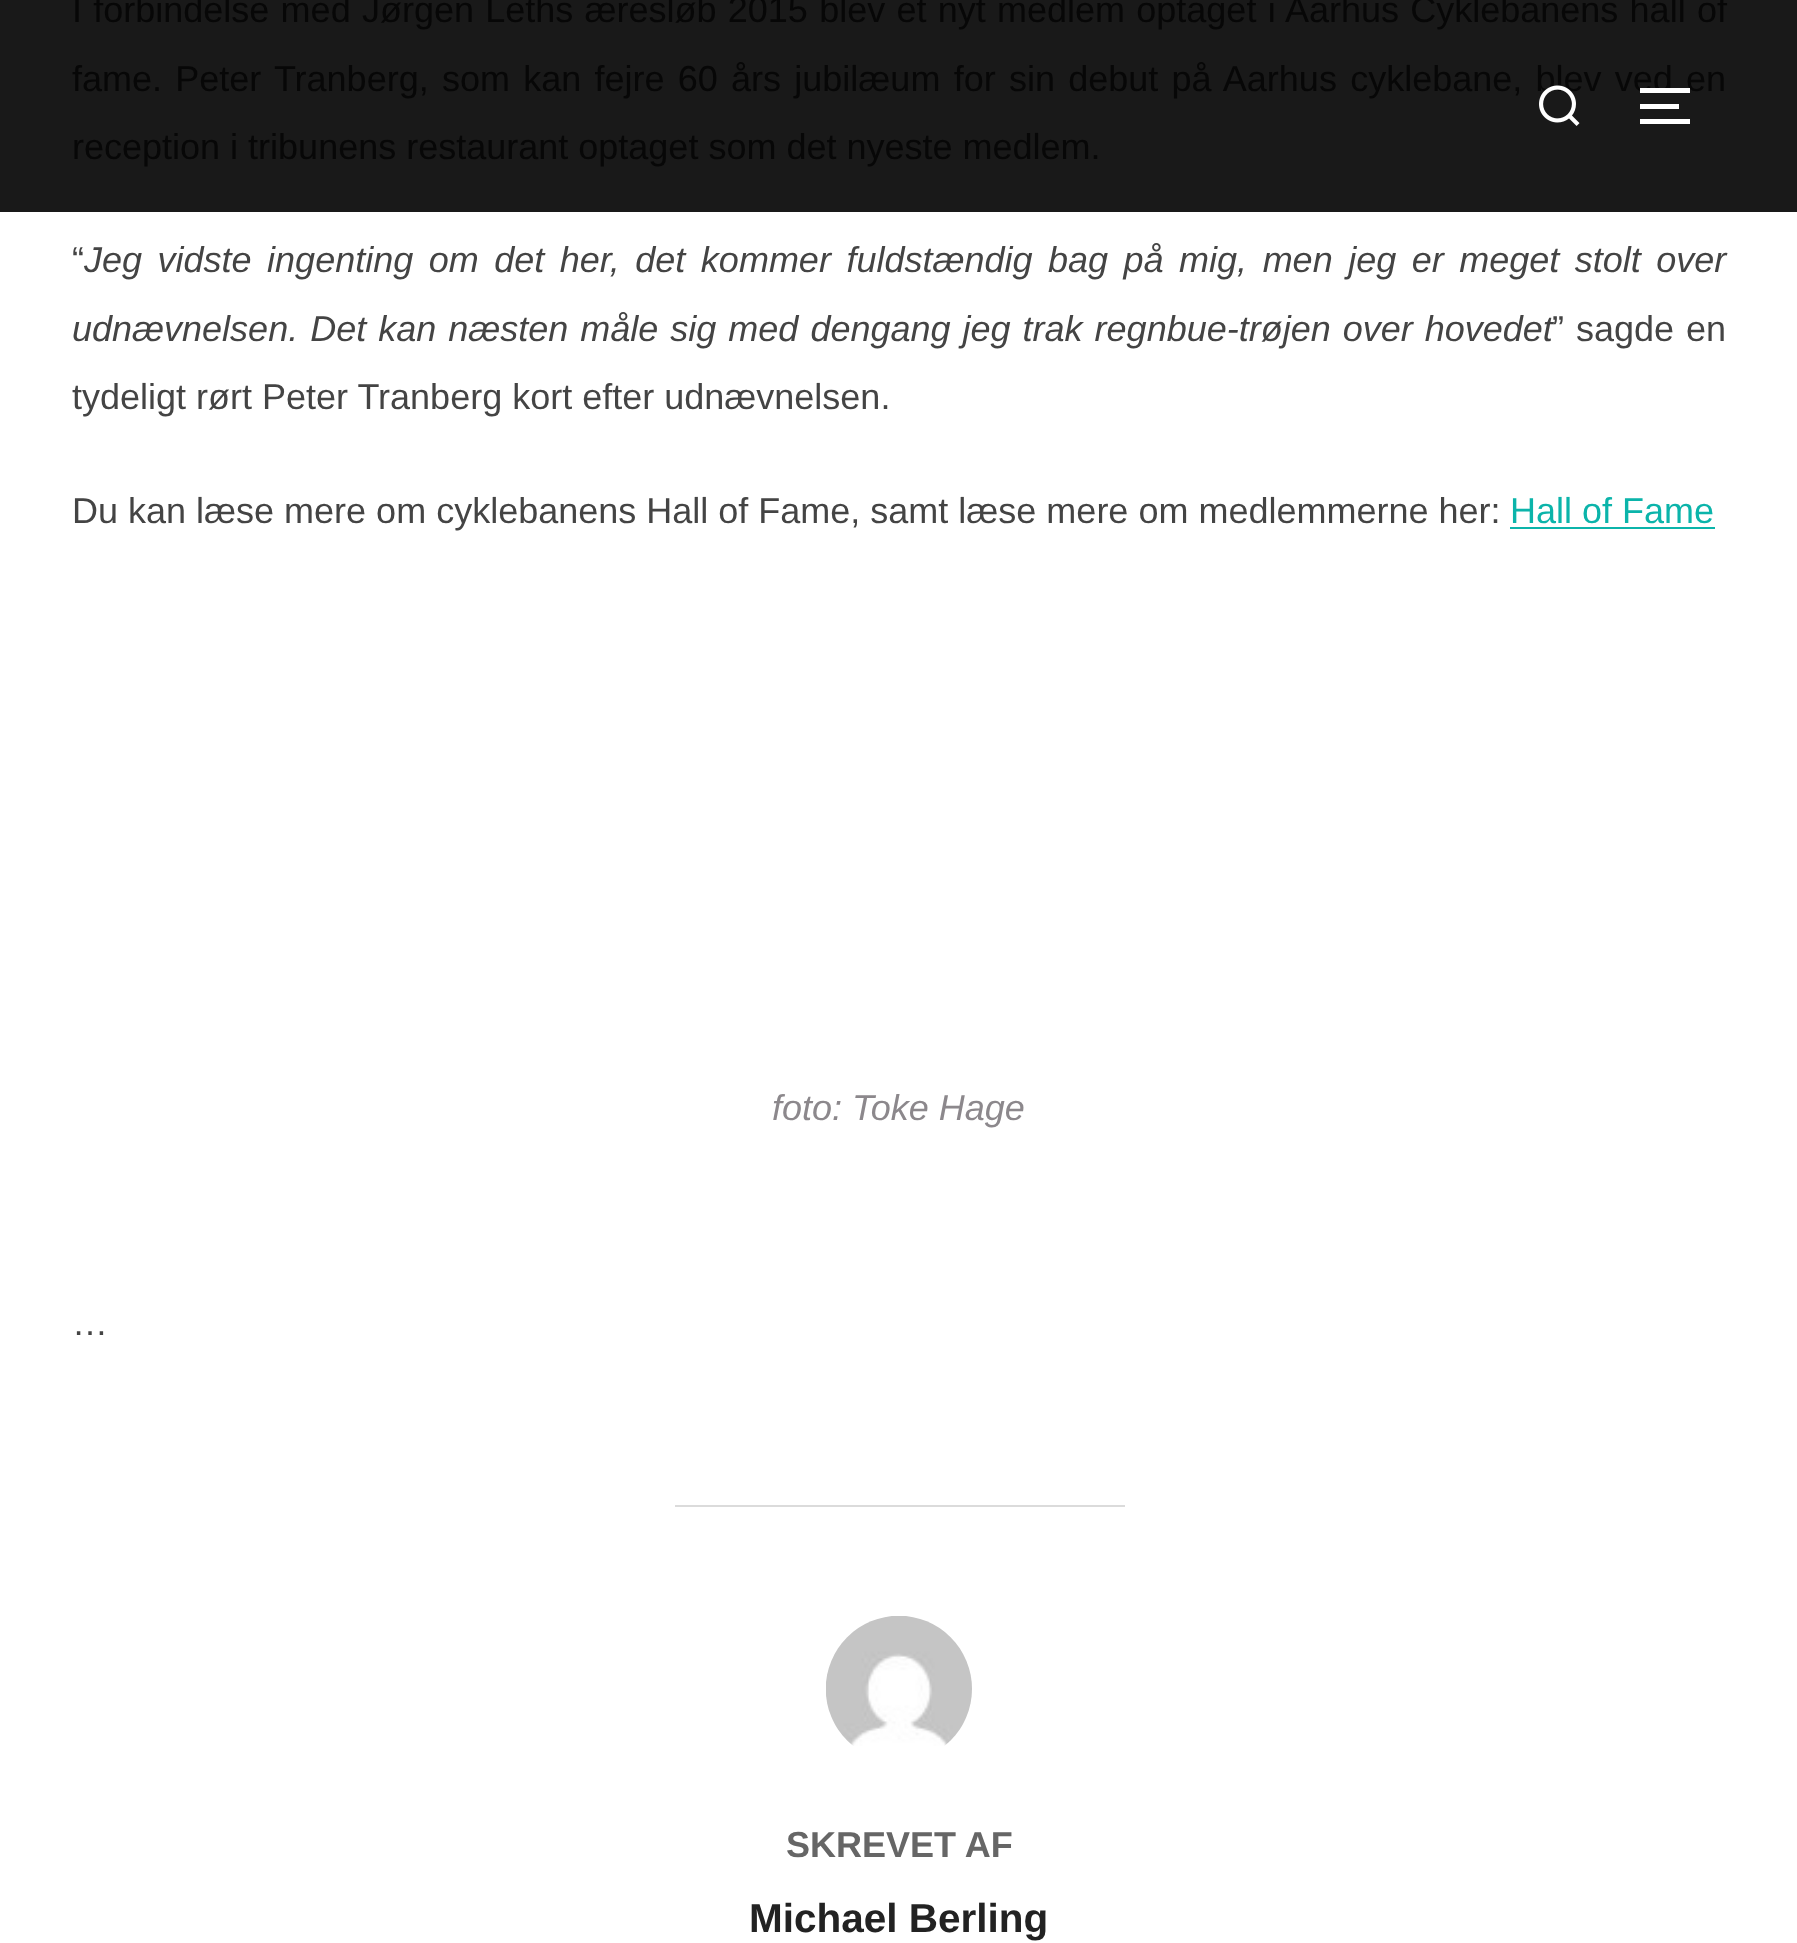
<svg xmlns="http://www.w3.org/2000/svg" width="1797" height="1943">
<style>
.a{font:36px Liberation Sans;fill:#070707}
.b{font:36px Liberation Sans;fill:#444}
.c{font:italic 36px Liberation Sans;fill:#444}
.d{font:36px Liberation Sans;fill:#0bb4aa}
.e{font:italic 36px Liberation Sans;fill:#8c888c}
.f{font:bold 36px Liberation Sans;fill:#666}
.g{font:bold 40.5px Liberation Sans;fill:#222}
</style>
<rect width="100%" height="100%" fill="#fff"/>
<path fill="#191919" d="M0 0h1797v212H0z"/>
<path fill="#0bb4aa" d="M1510 527h205v2H1510z"/>
<path fill="#dbdbdb" d="M675 1505h450v2H675z"/>
<image href="1.png" x="826" y="1616" width="146" height="130"/>
<path fill="#fff" d="M1640 104h39v5H1640z"/>
<path fill="#fff" d="M1640 119h50v5H1640z"/>
<text class="a" x="72" y="22" word-spacing="1.25">I forbindelse med Jørgen Leths æresløb 2015 blev et nyt medlem optaget i Aarhus Cyklebanens hall of</text>
<text class="a" x="72" y="91" word-spacing="3.25">fame. Peter Tranberg, som kan fejre 60 års jubilæum for sin debut på Aarhus cyklebane, blev ved en</text>
<text class="a" x="72" y="159">reception i tribunens restaurant optaget som det nyeste medlem.</text>
<text class="b" x="72" y="272">“</text>
<text class="c" x="84" y="272" word-spacing="5.5">Jeg vidste ingenting om det her, det kommer fuldstændig bag på mig, men jeg er meget stolt over</text>
<text class="c" x="72" y="341" word-spacing="2">udnævnelsen. Det kan næsten måle sig med dengang jeg trak regnbue-trøjen over hovedet</text>
<text class="b" x="1552" y="341" word-spacing="2">” sagde en</text>
<text class="b" x="72" y="409">tydeligt rørt Peter Tranberg kort efter udnævnelsen.</text>
<text class="b" x="72" y="523">Du kan læse mere om cyklebanens Hall of Fame, samt læse mere om medlemmerne her:</text>
<text class="d" x="1510" y="523">Hall of Fame</text>
<text class="e" x="772" y="1120">foto: Toke Hage</text>
<text class="b" x="72" y="1335">…</text>
<text class="f" x="786" y="1857">SKREVET AF</text>
<text class="g" x="749" y="1932">Michael Berling</text>
<image href="2.png" x="1539" y="85" width="41" height="41"/>
<path fill="#fff" d="M1640 88h50v5H1640z"/>
</svg>
